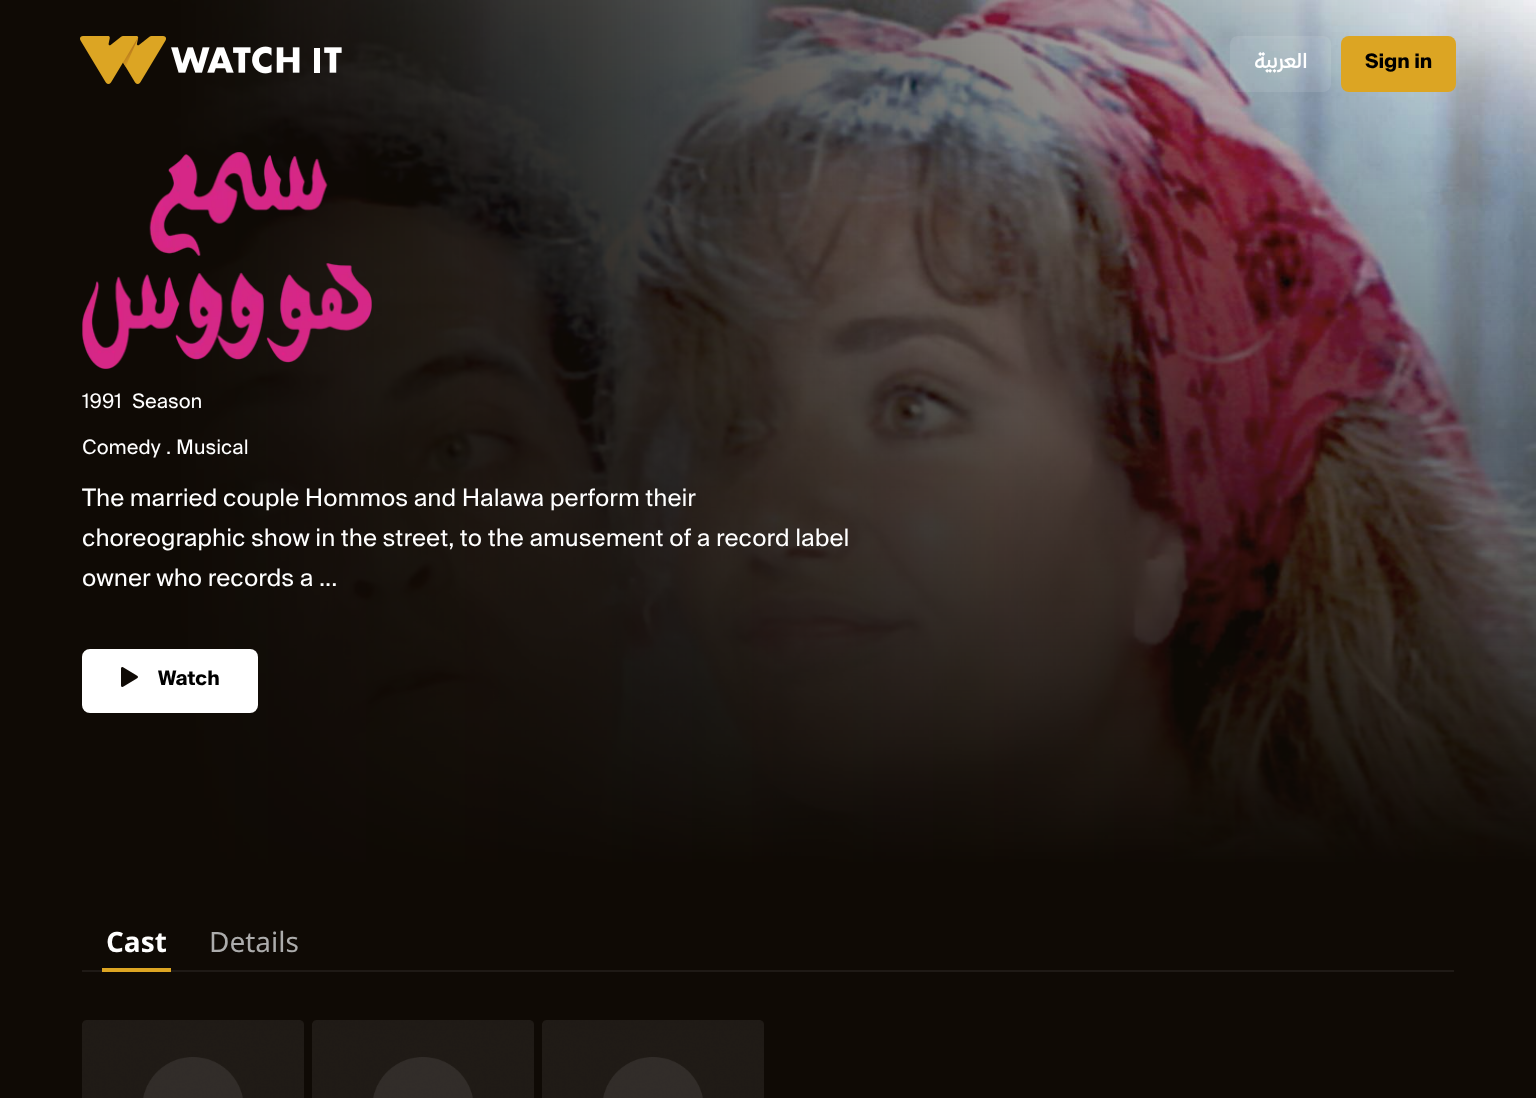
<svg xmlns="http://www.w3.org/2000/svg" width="1536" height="1098">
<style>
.a{font:bold 20px '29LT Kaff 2';direction:rtl;fill:#fff}
.b{font:bold 20px '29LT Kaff';fill:#000}
.c{font:20px '29LT Kaff';fill:#fff}
.d{font:24px '29LT Kaff';fill:#fff}
.e{font:bold 28px Noto Sans;fill:#fff}
.f{font:28px Noto Sans;fill:#acacac}
</style>
<rect width="100%" height="100%" fill="#0f0a05"/>
<image href="2.png" x="0" y="0" width="1536" height="864"/>
<image href="1.png" x="80" y="36" width="262" height="48"/>
<rect fill="#ffffff1a" x="1230" y="36" width="101" height="56" rx="8"/>
<rect fill="#dca523" x="1341" y="36" width="115" height="56" rx="8"/>
<image href="3.png" x="82" y="152" width="290" height="217"/>
<rect fill="#fff" x="82" y="649" width="176" height="64" rx="8"/>
<image href="4.png" x="121" y="667" width="17" height="20"/>
<path fill="#1f1a16" d="M82 970h1372v2H82z"/>
<path fill="#dca523" d="M102 968h69v4H102z"/>
<image href="5.png" x="82" y="1020" width="222" height="78"/>
<image href="5.png" x="312" y="1020" width="222" height="78"/>
<image href="5.png" x="542" y="1020" width="222" height="78"/>
<text class="a" x="1307" y="68">العربية</text>
<text class="b" x="1365" y="68">Sign in</text>
<text class="c" x="82" y="408">1991</text>
<text class="c" x="132" y="408">Season</text>
<text class="c" x="82" y="454">Comedy</text>
<text class="c" x="166" y="454">.</text>
<text class="c" x="176" y="454">Musical</text>
<text class="d" x="82" y="506">The married couple Hommos and Halawa perform their</text>
<text class="d" x="82" y="546">choreographic show in the street, to the amusement of a record label</text>
<text class="d" x="82" y="586">owner who records a ...</text>
<text class="b" x="158" y="685">Watch</text>
<text class="e" x="106" y="952">Cast</text>
<text class="f" x="209" y="952">Details</text>
</svg>
